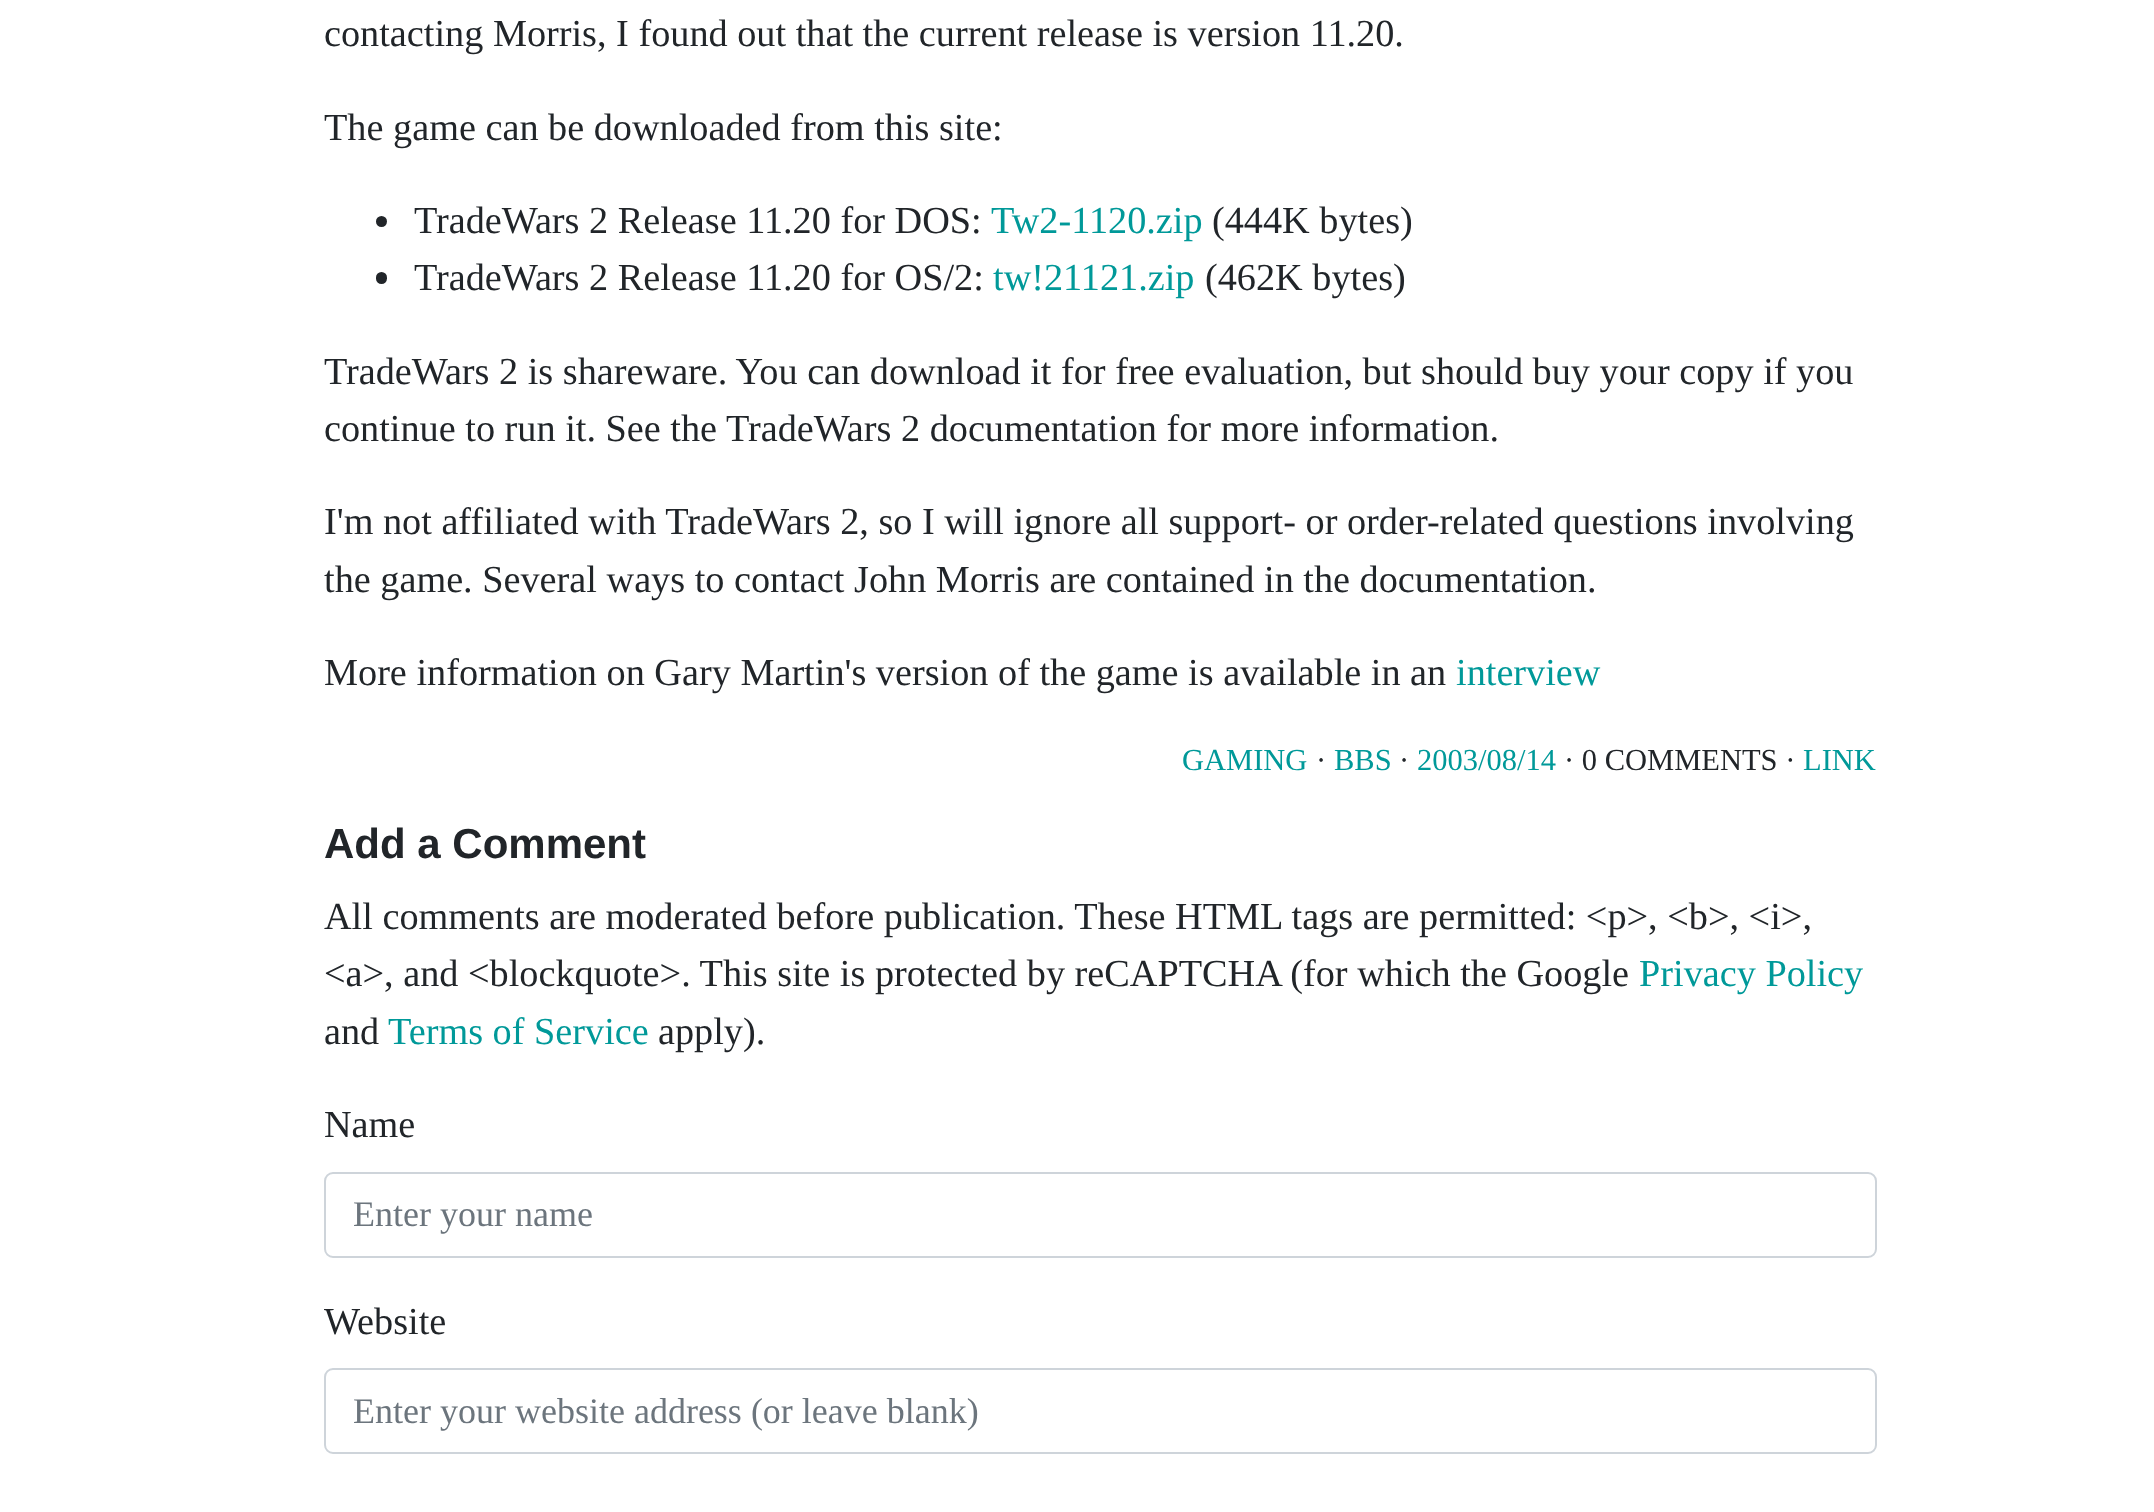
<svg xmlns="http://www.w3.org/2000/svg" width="2154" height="1512">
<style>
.a{font:38.25px Liberation Serif;fill:#212529}
.b{font:38.25px Liberation Serif;fill:#099}
.c{font:30.5px Liberation Serif;fill:#099}
.d{font:30.5px Liberation Serif;fill:#212529}
.e{font:bold 42px Liberation Sans;fill:#212529}
.f{font:36px Liberation Serif;fill:#6c757d}
</style>
<rect width="100%" height="100%" fill="#fff"/>
<circle fill="#212529" cx="381.5" cy="221.5" r="5.5"/>
<rect fill="#212529" x="376" y="272" width="11" height="12" rx="5.5"/>
<rect fill="none" stroke="#ced4da" stroke-width="2" x="325" y="1173" width="1551" height="84" rx="8"/>
<rect fill="none" stroke="#ced4da" stroke-width="2" x="325" y="1369" width="1551" height="84" rx="8"/>
<text class="a" x="324" y="46">contacting Morris, I found out that the current release is version 11.20.</text>
<text class="a" x="324" y="140">The game can be downloaded from this site:</text>
<text class="a" x="414" y="233">TradeWars 2 Release 11.20 for DOS:</text>
<text class="b" x="991" y="233">Tw2-1120.zip</text>
<text class="a" x="1212" y="233">(444K bytes)</text>
<text class="a" x="414" y="290">TradeWars 2 Release 11.20 for OS/2:</text>
<text class="b" x="993" y="290">tw!21121.zip</text>
<text class="a" x="1205" y="290">(462K bytes)</text>
<text class="a" x="324" y="384">TradeWars 2 is shareware. You can download it for free evaluation, but should buy your copy if you</text>
<text class="a" x="324" y="441">continue to run it. See the TradeWars 2 documentation for more information.</text>
<text class="a" x="324" y="534">I'm not affiliated with TradeWars 2, so I will ignore all support- or order-related questions involving</text>
<text class="a" x="324" y="592">the game. Several ways to contact John Morris are contained in the documentation.</text>
<text class="a" x="324" y="685">More information on Gary Martin's version of the game is available in an</text>
<text class="b" x="1456" y="685">interview</text>
<text class="c" x="1182" y="770">GAMING</text>
<text class="d" x="1316" y="770">·</text>
<text class="c" x="1334" y="770">BBS</text>
<text class="d" x="1399" y="770">·</text>
<text class="c" x="1417" y="770">2003/08/14</text>
<text class="d" x="1564" y="770">· 0 COMMENTS ·</text>
<text class="c" x="1803" y="770">LINK</text>
<text class="e" x="324" y="858">Add a Comment</text>
<text class="a" x="324" y="929">All comments are moderated before publication. These HTML tags are permitted: &lt;p&gt;, &lt;b&gt;, &lt;i&gt;,</text>
<text class="a" x="324" y="986">&lt;a&gt;, and &lt;blockquote&gt;. This site is protected by reCAPTCHA (for which the Google</text>
<text class="b" x="1639" y="986">Privacy Policy</text>
<text class="a" x="324" y="1044">and</text>
<text class="b" x="388" y="1044">Terms of Service</text>
<text class="a" x="658" y="1044">apply).</text>
<text class="a" x="324" y="1137">Name</text>
<text class="f" x="353" y="1226">Enter your name</text>
<text class="a" x="324" y="1334">Website</text>
<text class="f" x="353" y="1423">Enter your website address (or leave blank)</text>
</svg>
